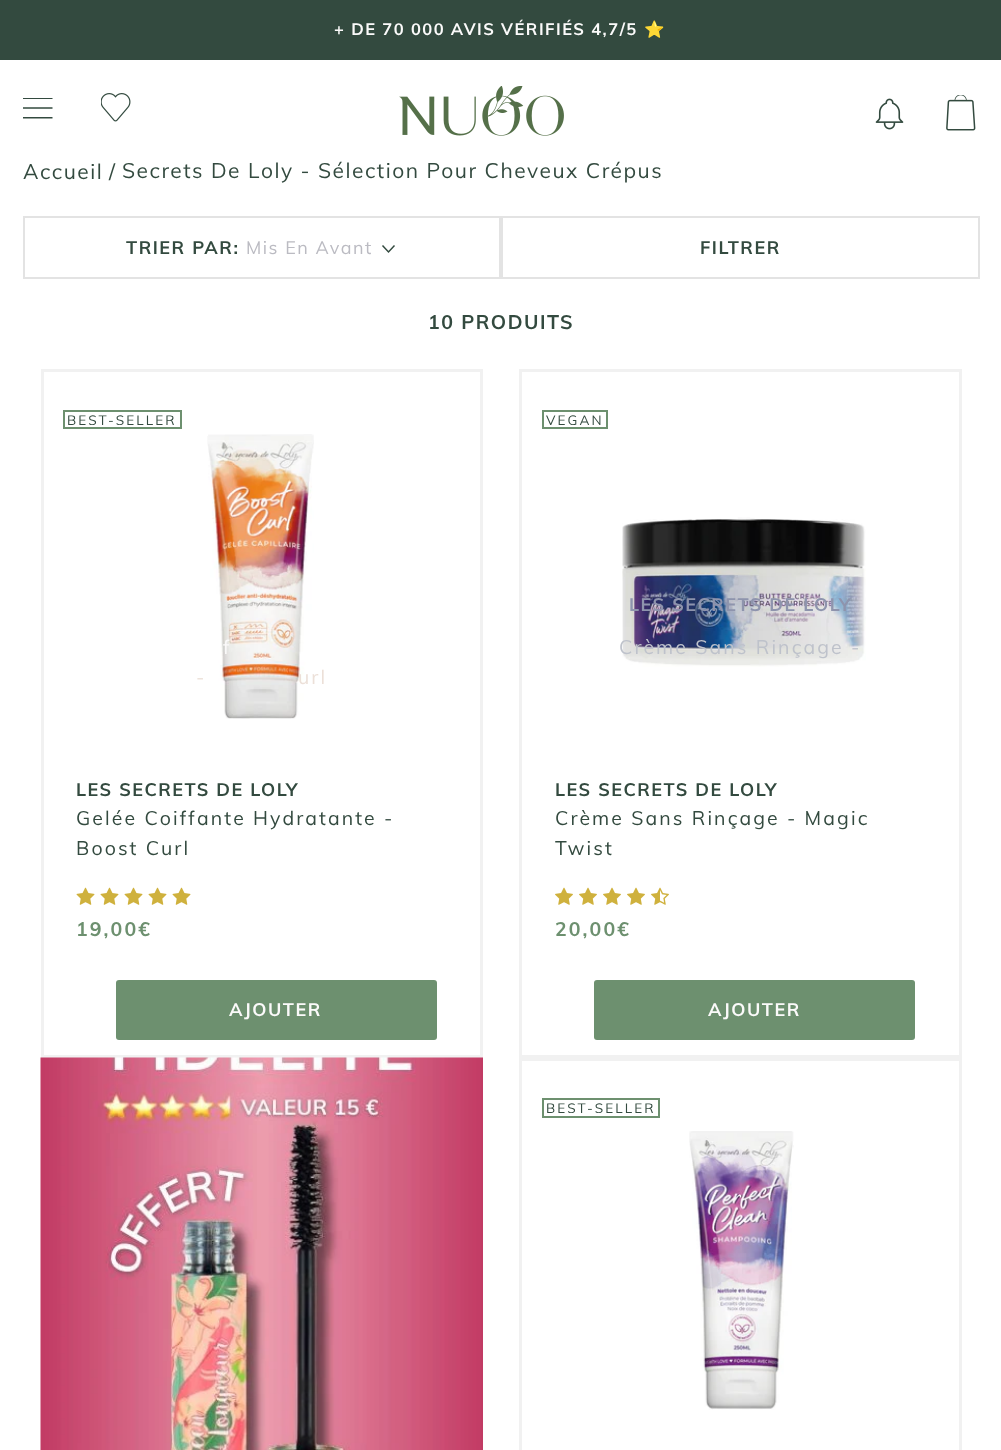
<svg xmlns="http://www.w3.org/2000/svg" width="1001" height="1450">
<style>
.a{font:bold 16.5px Muli;letter-spacing:1.5px;fill:#fbfafa}
.b{font:bold 16.5px Noto Color Emoji;letter-spacing:1.5px;fill:#fbfafa}
.c{font:21px Muli;letter-spacing:1.5px;fill:#334a3f}
.d{font:bold 18px Muli;letter-spacing:1.5px;fill:#334a3f}
.e{font:18px Muli;letter-spacing:1.5px;fill:#bbbbc2}
.f{font:bold 19.5px Muli;letter-spacing:1.5px;fill:#334a3f}
.g{font:13.5px Muli;letter-spacing:2.1px;fill:#334a3f}
.h{font:19.5px Muli;letter-spacing:2.1px;fill:#fbfafa}
.i{font:19.5px Muli;letter-spacing:2.1px;fill:#ece0d8}
.j{font:19.5px Muli;letter-spacing:2.1px;fill:#334a3f}
.k{font:bold 19.5px Muli;letter-spacing:2.1px;fill:#6d906f}
.l{font:bold 18px Muli;letter-spacing:1.5px;fill:#fbfafa}
.m{font:bold 18px Muli;letter-spacing:1.5px;fill:#8e94ad}
.n{font:19.5px Muli;letter-spacing:2.1px;fill:#bec2cb}
</style>
<rect width="100%" height="100%" fill="#fff"/>
<path fill="#334a3f" d="M0 0h1001v60H0z"/>
<image href="1.png" x="23" y="98" width="30" height="21"/>
<image href="2.png" x="101" y="93" width="30" height="29"/>
<image href="3.png" x="399" y="86" width="165" height="50"/>
<image href="4.png" x="875" y="98" width="29" height="32"/>
<image href="5.png" x="946" y="95" width="30" height="36"/>
<path fill="none" stroke="#e3e3e3" stroke-width="2" d="M24 217h476v61H24z"/>
<path fill="none" stroke="#334a3f" stroke-width="1.5" stroke-linecap="square" d="M394 246l-5.5 6l-5.5-6"/>
<path fill="none" stroke="#e3e3e3" stroke-width="2" d="M502 217h477v61H502z"/>
<path fill="none" stroke="#f1f1f1" stroke-width="3" d="M42.5 370.5h439v686H42.5z"/>
<path fill="none" stroke="#6d906f" stroke-width="2" d="M64 411h117v17H64z"/>
<image href="6.png" x="207" y="434" width="107" height="285"/>
<image href="7.png" x="76" y="887" width="19" height="18"/>
<image href="7.png" x="100" y="887" width="19" height="18"/>
<image href="7.png" x="124" y="887" width="19" height="18"/>
<image href="7.png" x="148" y="887" width="19" height="18"/>
<image href="7.png" x="172" y="887" width="19" height="18"/>
<rect fill="#6d906f" x="116" y="980" width="321" height="60" rx="3"/>
<path fill="none" stroke="#f1f1f1" stroke-width="3" d="M520.5 370.5h440v686H520.5z"/>
<path fill="none" stroke="#6d906f" stroke-width="2" d="M543 411h64v17H543z"/>
<image href="8.png" x="622" y="517" width="244" height="150"/>
<image href="9.png" x="555" y="887" width="18" height="18"/>
<image href="9.png" x="579" y="887" width="18" height="18"/>
<image href="9.png" x="603" y="887" width="18" height="18"/>
<image href="9.png" x="627" y="887" width="18" height="18"/>
<image href="10.png" x="651" y="887" width="18" height="18"/>
<rect fill="#6d906f" x="594" y="980" width="321" height="60" rx="3"/>
<image href="11.png" x="40" y="1057" width="443" height="393"/>
<path fill="none" stroke="#f1f1f1" stroke-width="3" d="M520.5 1059.5h440v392H520.5z"/>
<path fill="none" stroke="#6d906f" stroke-width="2" d="M543 1099h116v18H543z"/>
<image href="12.png" x="689" y="1131" width="105" height="279"/>
<text class="a" x="334" y="35" word-spacing="-0.25">+ DE 70 000 AVIS VÉRIFIÉS 4,7/5</text>
<text class="b" x="644" y="35">⭐️</text>
<text class="c" x="23" y="179">Accueil</text>
<text class="c" x="109" y="179">/</text>
<text class="c" x="122" y="178">Secrets De Loly - Sélection Pour Cheveux Crépus</text>
<text class="d" x="126" y="254">TRIER PAR:</text>
<text class="e" x="246" y="254">Mis En Avant</text>
<text class="d" x="700" y="254">FILTRER</text>
<text class="f" x="428" y="329">10 PRODUITS</text>
<text class="g" x="67" y="425">BEST-SELLER</text>
<text class="h" x="223" y="654">f</text>
<text class="i" x="196" y="684">-</text>
<text class="i" x="298" y="684">url</text>
<text class="d" x="76" y="796">LES SECRETS DE LOLY</text>
<text class="j" x="76" y="825">Gelée Coiffante Hydratante -</text>
<text class="j" x="76" y="855">Boost Curl</text>
<text class="k" x="76" y="936">19,00€</text>
<text class="l" x="229" y="1016">AJOUTER</text>
<text class="g" x="546" y="425">VEGAN</text>
<text class="m" x="629" y="611">LES SECRETS DE LOLY</text>
<text class="n" x="619" y="654">Crème Sans Rinçage -</text>
<text class="d" x="555" y="796">LES SECRETS DE LOLY</text>
<text class="j" x="555" y="825">Crème Sans Rinçage - Magic</text>
<text class="j" x="555" y="855">Twist</text>
<text class="k" x="555" y="936">20,00€</text>
<text class="l" x="708" y="1016">AJOUTER</text>
<text class="g" x="546" y="1113">BEST-SELLER</text>
</svg>
